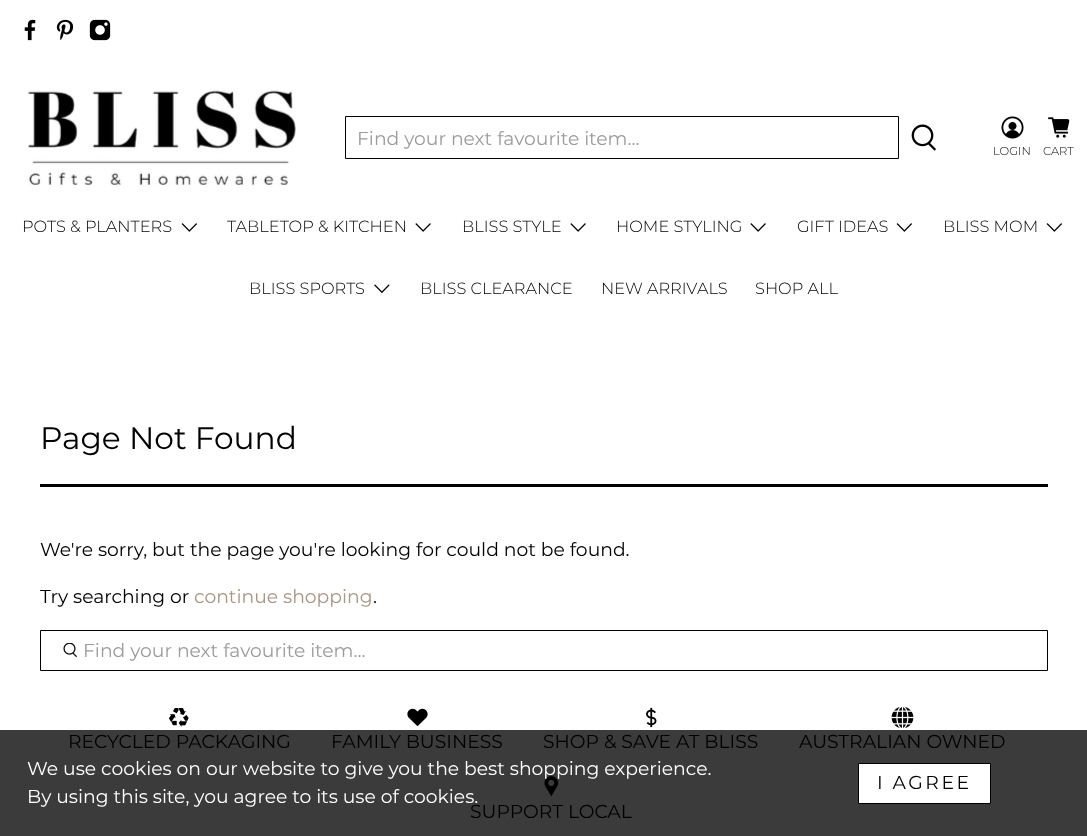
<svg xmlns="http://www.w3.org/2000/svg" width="1087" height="836">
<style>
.a{font:18.75px Montserrat;fill:#9b9b9b}
.b{font:300 11.5px Montserrat;fill:#000}
.c{font:300 16.25px Montserrat;fill:#000}
.d{font:31.25px Montserrat;fill:#000}
.e{font:18.75px Montserrat;fill:#000}
.f{font:18.75px Montserrat;fill:#a99583}
.g{font:18.75px Montserrat;fill:#fff}
.h{font:18.75px Montserrat;letter-spacing:2.5px;fill:#000}
</style>
<rect width="100%" height="100%" fill="#fff"/>
<path fill="#3b3b3b" d="M0 730h1087v106H0z"/>
<image href="1.png" x="24" y="19" width="12" height="22"/>
<image href="2.png" x="56" y="19" width="18" height="21"/>
<image href="3.png" x="89" y="19" width="22" height="22"/>
<image href="4.png" x="27" y="90" width="269" height="96"/>
<path fill="none" stroke="#000" d="M345.5 116.5h553v42H345.5z"/>
<image href="5.png" x="911" y="124" width="25" height="27"/>
<image href="6.png" x="1001" y="116" width="23" height="23"/>
<image href="7.png" x="1048" y="117" width="22" height="21"/>
<image href="8.png" x="181" y="223" width="16" height="9"/>
<image href="9.png" x="415" y="223" width="16" height="9"/>
<image href="9.png" x="570" y="223" width="16" height="9"/>
<image href="9.png" x="750" y="223" width="16" height="9"/>
<image href="8.png" x="896" y="223" width="16" height="9"/>
<image href="8.png" x="1046" y="223" width="16" height="9"/>
<image href="10.png" x="374" y="284" width="16" height="9"/>
<path fill="#000" d="M40 484h1008v3H40z"/>
<path fill="none" stroke="#000" d="M40.5 630.5h1007v40H40.5z"/>
<image href="11.png" x="63" y="643" width="14" height="15"/>
<image href="12.png" x="169" y="708" width="20" height="19"/>
<image href="13.png" x="407" y="708" width="21" height="19"/>
<image href="14.png" x="646" y="707" width="11" height="21"/>
<image href="15.png" x="891" y="707" width="23" height="21"/>
<image href="16.png" x="544" y="776" width="15" height="21"/>
<path fill="#fff" stroke="#000" d="M858.5 763.5h132v40H858.5z"/>
<text class="a" x="357" y="145">Find your next favourite item...</text>
<text class="b" x="993" y="155">LOGIN</text>
<text class="b" x="1043" y="155">CART</text>
<text class="c" x="22" y="232">POTS &amp; PLANTERS</text>
<text class="c" x="227" y="232">TABLETOP &amp; KITCHEN</text>
<text class="c" x="462" y="232">BLISS STYLE</text>
<text class="c" x="616" y="232">HOME STYLING</text>
<text class="c" x="797" y="232">GIFT IDEAS</text>
<text class="c" x="943" y="232">BLISS MOM</text>
<text class="c" x="249" y="294">BLISS SPORTS</text>
<text class="c" x="420" y="294">BLISS CLEARANCE</text>
<text class="c" x="601" y="294">NEW ARRIVALS</text>
<text class="c" x="755" y="294">SHOP ALL</text>
<text class="d" x="40" y="449">Page Not Found</text>
<text class="e" x="40" y="556">We're sorry, but the page you're looking for could not be found.</text>
<text class="e" x="40" y="603">Try searching or</text>
<text class="f" x="194" y="603">continue shopping</text>
<text class="e" x="373" y="603">.</text>
<text class="a" x="83" y="657">Find your next favourite item...</text>
<text class="e" x="68" y="748">RECYCLED PACKAGING</text>
<text class="e" x="331" y="748">FAMILY BUSINESS</text>
<text class="e" x="543" y="748">SHOP &amp; SAVE AT BLISS</text>
<text class="e" x="799" y="748">AUSTRALIAN OWNED</text>
<text class="e" x="470" y="818">SUPPORT LOCAL</text>
<text class="g" x="27" y="775">We use cookies on our website to give you the best shopping experience.</text>
<text class="g" x="27" y="803">By using this site, you agree to its use of cookies.</text>
<text class="h" x="877" y="789">I AGREE</text>
</svg>
